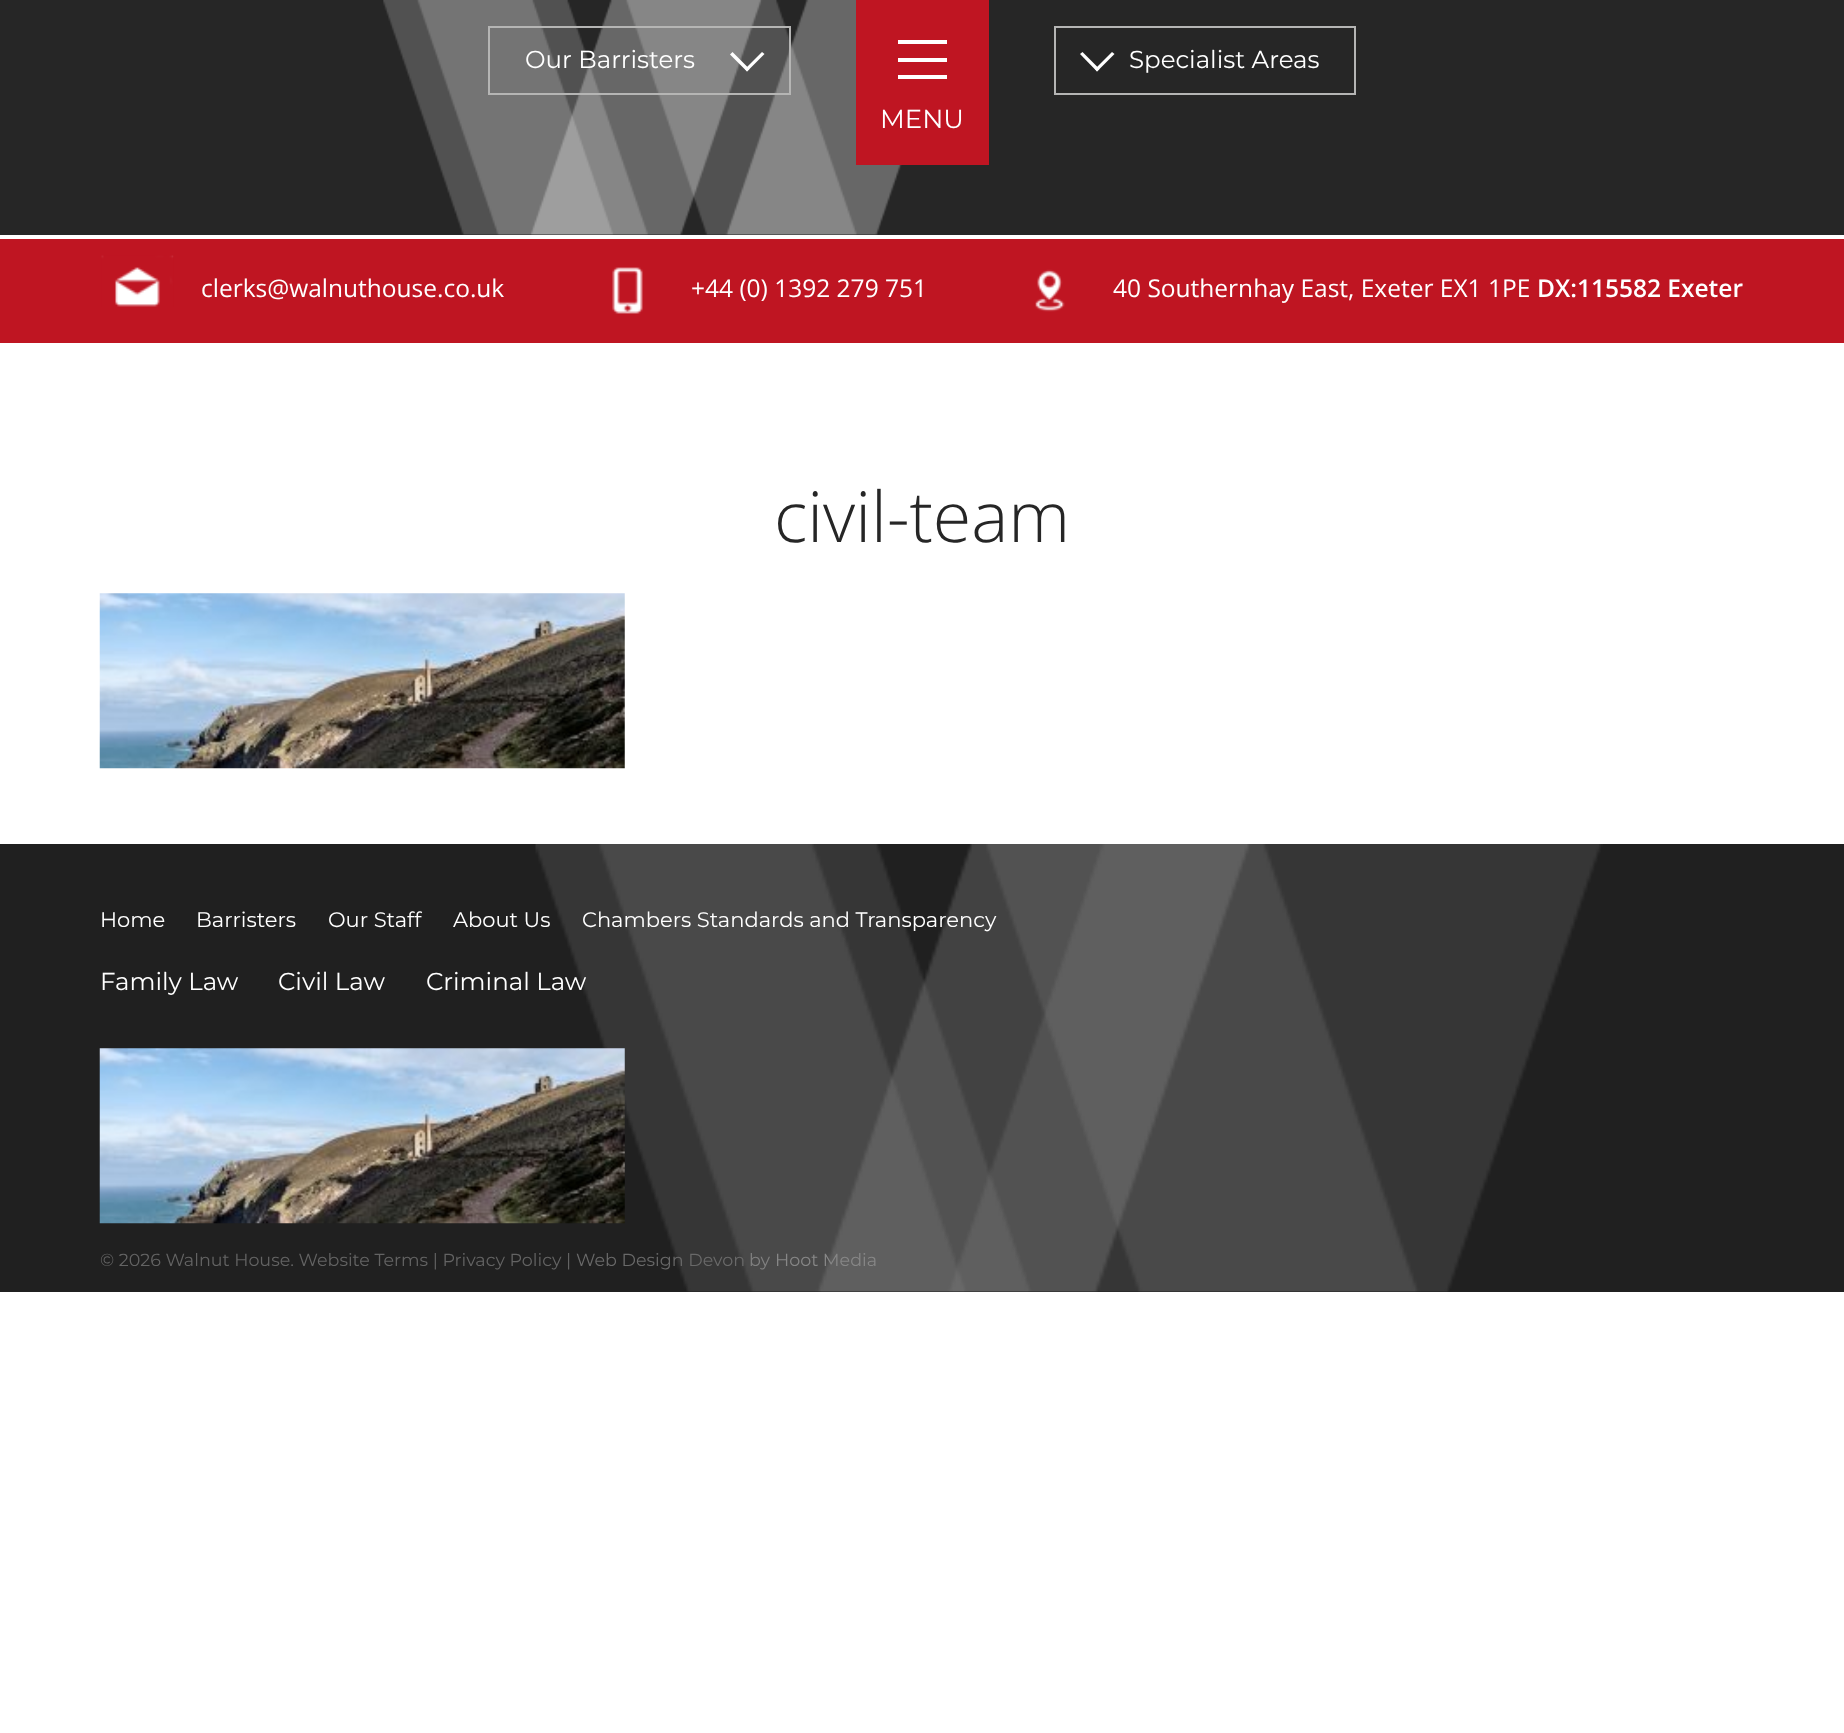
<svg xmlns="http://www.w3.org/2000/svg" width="1844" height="1733">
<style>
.a{font:24.5px Montserrat;fill:#fff}
.b{font:26px Montserrat;fill:#fff}
.c{font:24.5px Open Sans;fill:#fff}
.d{font:600 24.5px Open Sans;fill:#fff}
.e{font:300 70px Open Sans;fill:#262626}
.f{font:21px Montserrat;fill:#fff}
.g{font:17.5px Montserrat;fill:#636363}
.h{font:17.5px Montserrat;fill:#696969}
.i{font:17.5px Montserrat;fill:#808080}
.j{font:17.5px Montserrat;fill:#878787}
</style>
<rect width="100%" height="100%" fill="#fff"/>
<path fill="#bf1522" d="M0 239h1844v104H0z"/>
<path fill="#262626" d="M0 0h1844v235H0z"/>
<image href="1.png" x="383" y="0" width="519" height="235"/>
<path fill="none" stroke="#b5b5b4" stroke-width="2" d="M489 27h301v67H489z"/>
<path fill="#fff" d="M764.5 54l-17.5 17.5l-2-2.5l17-17z"/>
<path fill="#fff" d="M749.5 69l-2.5 2.5l-17-17l2.5-2.5z"/>
<path fill="none" stroke="#b5b5b4" stroke-width="2" d="M1055 27h300v67H1055z"/>
<path fill="#fff" d="M1114.5 54l-17.5 17.5l-2-2.5l17-17z"/>
<path fill="#fff" d="M1099.5 69l-2.5 2.5l-17-17.5l2.5-2z"/>
<path fill="#bf1522" d="M856 0h133v165H856z"/>
<path fill="#fff" d="M898 40h49v4H898z"/>
<path fill="#fff" d="M898 58h49v4H898z"/>
<path fill="#fff" d="M898 75h49v4H898z"/>
<image href="2.png" x="101" y="255" width="73" height="52"/>
<image href="3.png" x="612" y="267" width="31" height="47"/>
<image href="4.png" x="1035" y="269" width="30" height="43"/>
<image href="5.png" x="99" y="593" width="526" height="176"/>
<path fill="#202020" d="M0 844h1844v448H0z"/>
<image href="6.png" x="535" y="844" width="1068" height="448"/>
<image href="7.png" x="99" y="1048" width="526" height="176"/>
<text class="a" x="525" y="68">Our Barristers</text>
<text class="a" x="1129" y="68">Specialist Areas</text>
<text class="b" x="880" y="128">MENU</text>
<text class="c" x="201" y="297">clerks@walnuthouse.co.uk</text>
<text class="c" x="691" y="297">+44 (0) 1392 279 751</text>
<text class="c" x="1113" y="297">40 Southernhay East, Exeter EX1 1PE</text>
<text class="d" x="1537" y="297">DX:115582 Exeter</text>
<text class="e" x="774" y="542">civil-team</text>
<text class="f" x="100" y="927">Home</text>
<text class="f" x="196" y="927">Barristers</text>
<text class="f" x="328" y="927">Our Staff</text>
<text class="f" x="453" y="927">About Us</text>
<text class="f" x="582" y="927">Chambers Standards and Transparency</text>
<text class="a" x="100" y="990">Family Law</text>
<text class="a" x="278" y="990">Civil Law</text>
<text class="a" x="426" y="990">Criminal Law</text>
<text class="g" x="100" y="1266">© 2026 Walnut House. Website Terms | Privacy Policy |</text>
<text class="h" x="576" y="1266">Web Design Devon</text>
<text class="i" x="749" y="1266">by</text>
<text class="j" x="775" y="1266">Hoot Media</text>
</svg>
